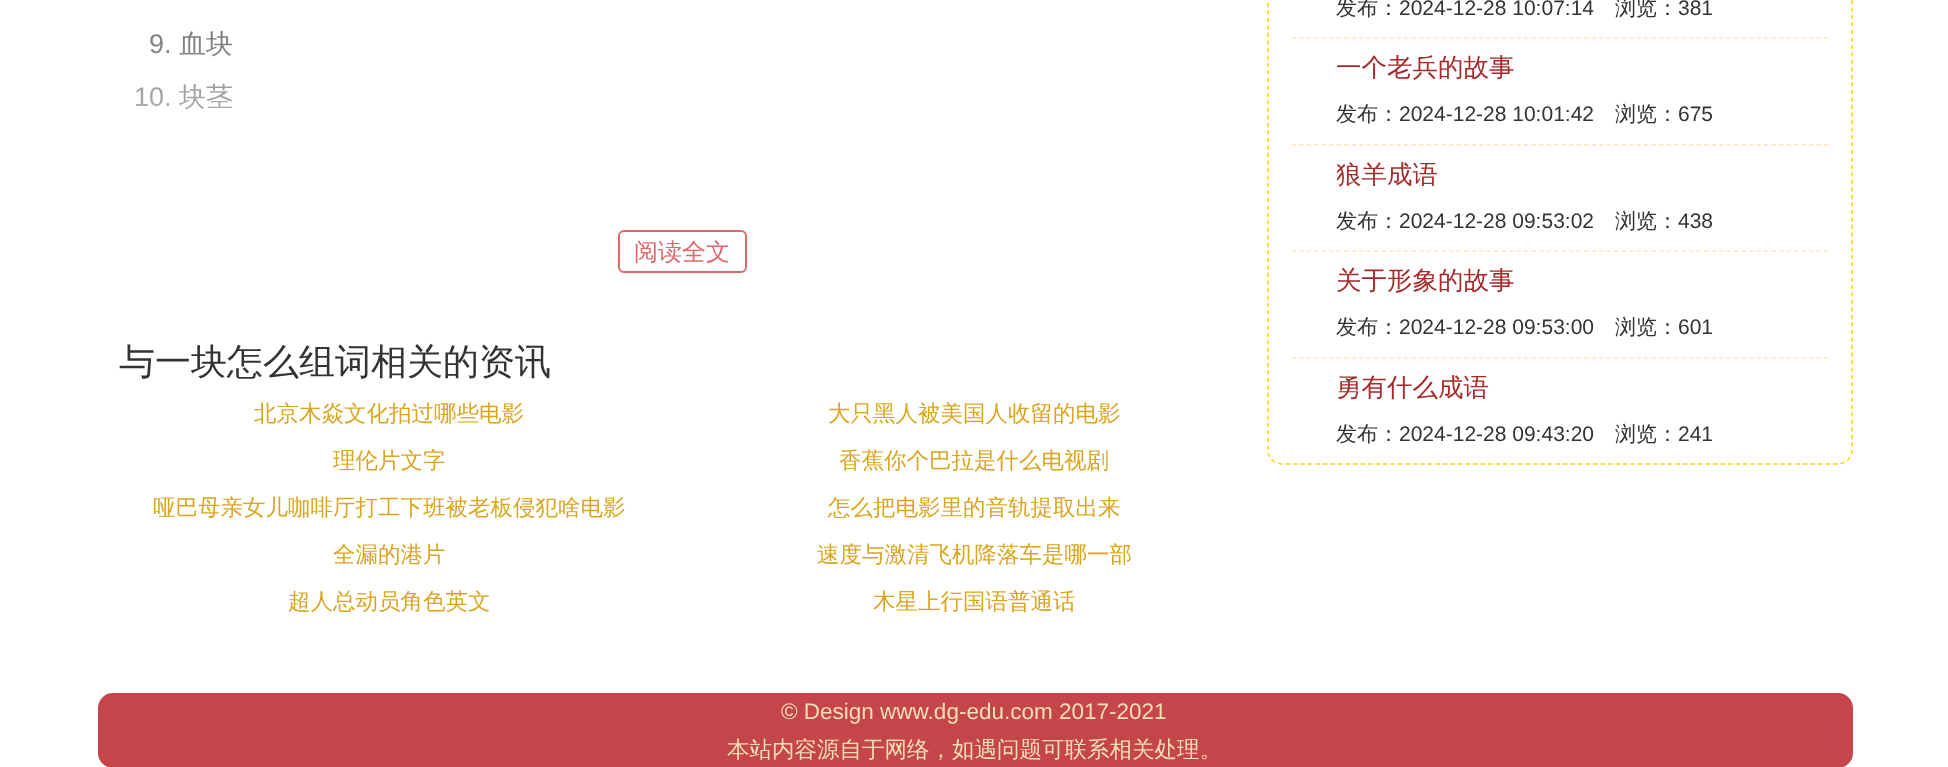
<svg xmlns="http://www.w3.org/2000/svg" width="1948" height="767">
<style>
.a{font:27px Liberation Sans;fill:#333}
.b{font:500 27px WenQuanYi Zen Hei;fill:#333}
.c{font:500 24px WenQuanYi Zen Hei;fill:#de686d}
.d{font:500 36px WenQuanYi Zen Hei;fill:#333}
.e{font:500 22.5px WenQuanYi Zen Hei;fill:#daa520}
.f{font:500 21px WenQuanYi Zen Hei;fill:#333}
.g{font:21px Liberation Sans;fill:#333}
.h{font:500 25.5px WenQuanYi Zen Hei;fill:#a52a2a}
.i{font:22.5px Liberation Sans;fill:#f5deb3}
.j{font:500 22.5px WenQuanYi Zen Hei;fill:#f5deb3}
</style>
<defs>
<linearGradient id="g1" gradientUnits="userSpaceOnUse" x1="120" y1="-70" x2="120" y2="230"><stop offset="0" stop-color="#fff" stop-opacity="0"/><stop offset="1" stop-color="#fff"/></linearGradient>
<clipPath id="clip1"><path d="M1337 161h477v30H1337z"/></clipPath>
</defs>
<rect width="100%" height="100%" fill="#fff"/>
<rect fill="none" stroke="#de686d" stroke-width="2" x="619" y="231" width="127" height="41" rx="5"/>
<path fill="none" stroke="#ffd700" stroke-width="1.5" stroke-dasharray="4.5 3" d="M1282.5-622h555c8 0 14.5 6.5 14.5 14.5v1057.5c0 8-6.5 14-14.5 14h-555c-8 0-14.5-6-14.5-14v-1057.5c0-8 6.5-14.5 14.5-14.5z"/>
<path fill="none" stroke="#ffe4c4" stroke-width="1.5" stroke-dasharray="4.5 3" d="M1291.5 38h537"/>
<path fill="none" stroke="#ffe4c4" stroke-width="1.5" stroke-dasharray="4.5 3" d="M1291.5 145h537"/>
<path fill="none" stroke="#ffe4c4" stroke-width="1.5" stroke-dasharray="4.5 3" d="M1291.5 251h537"/>
<path fill="none" stroke="#ffe4c4" stroke-width="1.5" stroke-dasharray="4.5 3" d="M1291.5 358h537"/>
<rect fill="#c5464a" x="98" y="693" width="1755" height="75" rx="15"/>
<text class="a" x="149" y="53">9.</text>
<text class="b" x="179" y="53">血块</text>
<text class="a" x="134" y="106">10.</text>
<text class="b" x="179" y="106">块茎</text>
<path fill="url(#g1)" d="M136 30h97v80H136z"/>
<text class="c" x="634" y="260">阅读全文</text>
<text class="d" x="119" y="374">与一块怎么组词相关的资讯</text>
<text class="e" x="254" y="421">北京木焱文化拍过哪些电影</text>
<text class="e" x="828" y="421">大只黑人被美国人收留的电影</text>
<text class="e" x="333" y="468">理伦片文字</text>
<text class="e" x="839" y="468">香蕉你个巴拉是什么电视剧</text>
<text class="e" x="153" y="515">哑巴母亲女儿咖啡厅打工下班被老板侵犯啥电影</text>
<text class="e" x="828" y="515">怎么把电影里的音轨提取出来</text>
<text class="e" x="333" y="562">全漏的港片</text>
<text class="e" x="817" y="562">速度与激清飞机降落车是哪一部</text>
<text class="e" x="288" y="609">超人总动员角色英文</text>
<text class="e" x="873" y="609">木星上行国语普通话</text>
<text class="f" x="1336" y="15">发布：</text>
<text class="g" x="1399" y="15">2024-12-28 10:07:14</text>
<text class="f" x="1615" y="15">浏览：</text>
<text class="g" x="1678" y="15">381</text>
<text class="h" x="1336" y="76">一个老兵的故事</text>
<text class="f" x="1336" y="121">发布：</text>
<text class="g" x="1399" y="121">2024-12-28 10:01:42</text>
<text class="f" x="1615" y="121">浏览：</text>
<text class="g" x="1678" y="121">675</text>
<g clip-path="url(#clip1)">
<text class="h" x="1336" y="183">狼羊成语</text>
</g>
<text class="f" x="1336" y="228">发布：</text>
<text class="g" x="1399" y="228">2024-12-28 09:53:02</text>
<text class="f" x="1615" y="228">浏览：</text>
<text class="g" x="1678" y="228">438</text>
<text class="h" x="1336" y="289">关于形象的故事</text>
<text class="f" x="1336" y="334">发布：</text>
<text class="g" x="1399" y="334">2024-12-28 09:53:00</text>
<text class="f" x="1615" y="334">浏览：</text>
<text class="g" x="1678" y="334">601</text>
<text class="h" x="1336" y="396">勇有什么成语</text>
<text class="f" x="1336" y="441">发布：</text>
<text class="g" x="1399" y="441">2024-12-28 09:43:20</text>
<text class="f" x="1615" y="441">浏览：</text>
<text class="g" x="1678" y="441">241</text>
<text class="i" x="781" y="719">© Design www.dg-edu.com 2017-2021</text>
<text class="j" x="727" y="757">本站内容源自于网络，如遇问题可联系相关处理。</text>
</svg>
